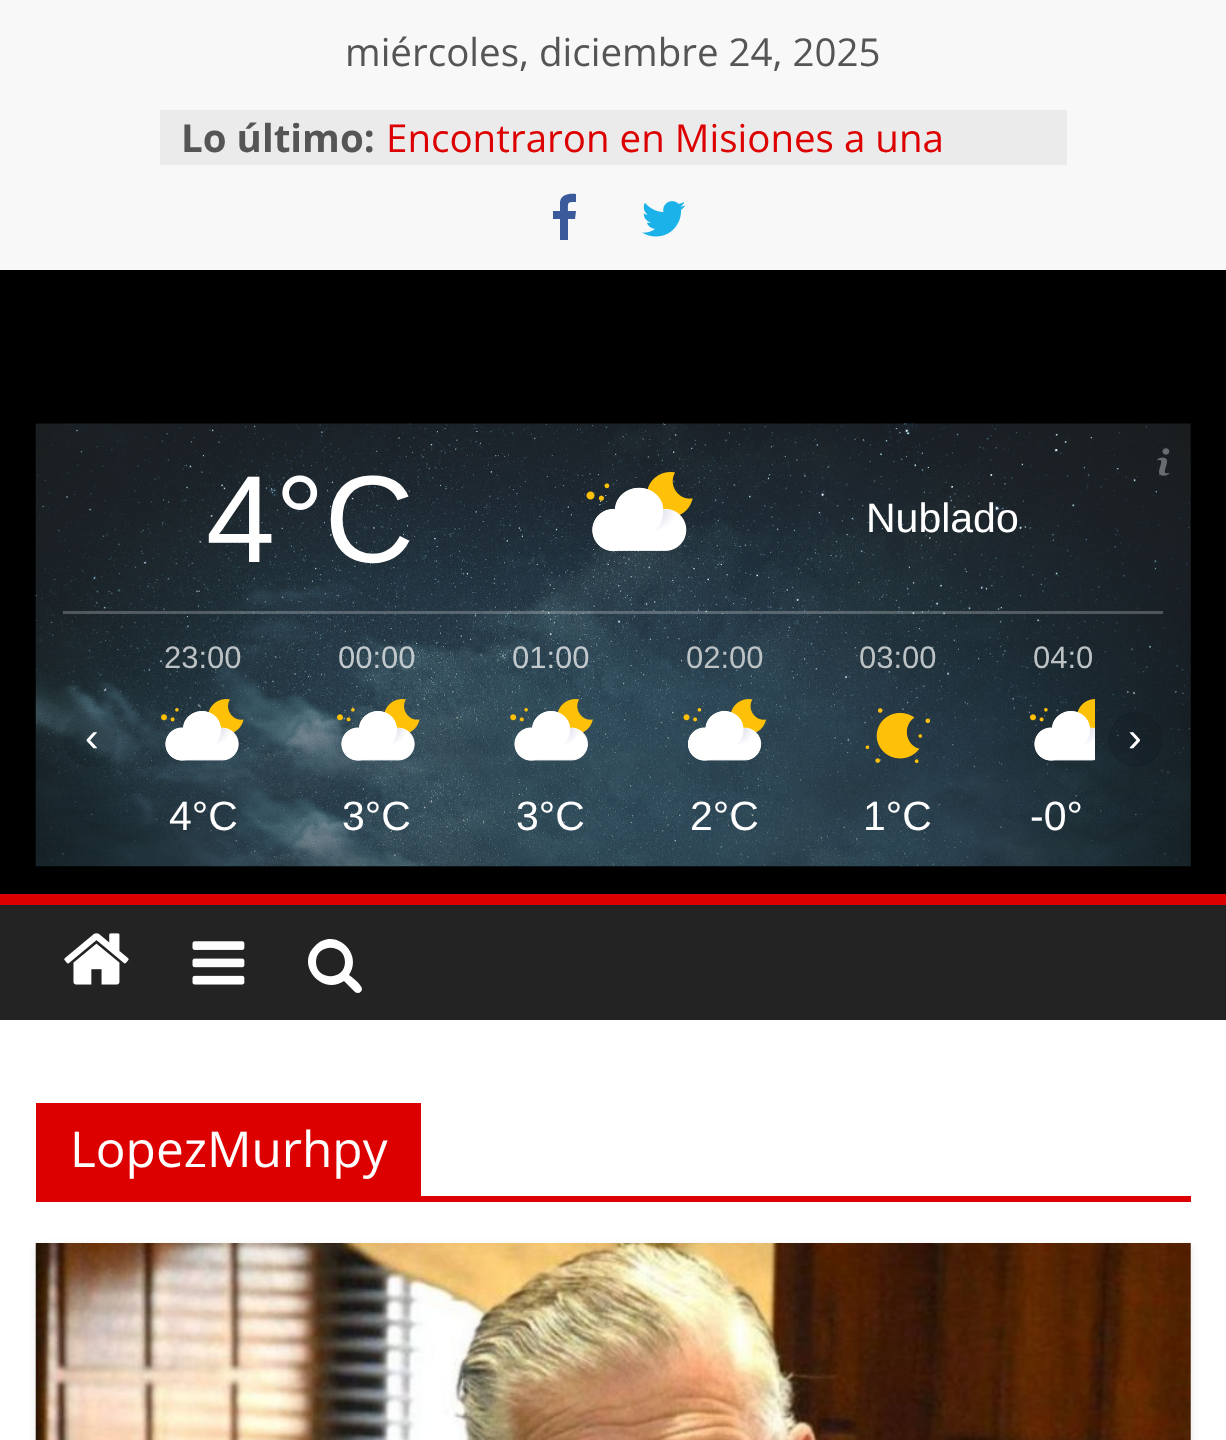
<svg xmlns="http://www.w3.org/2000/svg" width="1226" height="1440">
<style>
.a{font:38.5px Open Sans;fill:#555}
.b{font:bold 38.5px Open Sans;fill:#555}
.c{font:38.5px Open Sans;fill:#d00}
.d{font:124px Liberation Sans;fill:#fff}
.e{font:41px Liberation Sans;fill:#fff}
.f{font:31px Liberation Sans;fill:#bdc2c5}
.g{font:31px Liberation Sans;fill:#c1c9cd}
.h{font:49.5px Open Sans;fill:#fff}
</style>
<rect width="100%" height="100%" fill="#000"/>
<path fill="#f8f8f8" d="M0 0h1226v270H0z"/>
<path fill="#ebebec" d="M160 110h907v55H160z"/>
<path fill="#3b5a9b" d="M576 194c-6-1-15 0-16 8v9h-7v8h7v21h8v-21h7l1-8h-8c0-9-1-9 8-9z"/>
<image href="1.png" x="642" y="201" width="44" height="36"/>
<image href="2.png" x="35" y="423" width="1156" height="444"/>
<image href="3.png" x="1157" y="448" width="13" height="28"/>
<image href="4.png" x="586" y="472" width="107" height="80"/>
<path fill="#ffffff3d" d="M63 611h1100v3H63z"/>
<circle fill="#0000001a" cx="90.5" cy="739.5" r="27.5"/>
<image href="5.png" x="161" y="699" width="83" height="62"/>
<image href="6.png" x="337" y="699" width="83" height="62"/>
<image href="7.png" x="510" y="699" width="83" height="62"/>
<image href="8.png" x="683" y="699" width="83" height="62"/>
<image href="9.png" x="865" y="708" width="66" height="56"/>
<image href="10.png" x="1030" y="699" width="65" height="62"/>
<circle fill="#0000001a" cx="1135.5" cy="739.5" r="27.5"/>
<path fill="#232323" d="M0 905h1226v115H0z"/>
<path fill="#d00" d="M0 894h1226v11H0z"/>
<image href="11.png" x="64" y="933" width="65" height="52"/>
<image href="12.png" x="192" y="941" width="53" height="44"/>
<path fill="#fff" d="M345 962c0 19-29 19-29 0c0-19 29-19 29 0zm17 27c0-4-10-12-13-14c15-22-15-49-34-29c-20 19 7 50 29 35l11 11c0 0 1 1 3 1c2 0 4-2 4-4z"/>
<path fill="#fff" d="M0 1020h1226v420H0z"/>
<path fill="#d00" d="M36 1196h1155v6H36z"/>
<path fill="#d00" d="M36 1103h385v93H36z"/>
<path fill="#0000001a" filter="blur(4px)" d="M36 1246h1155v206H36z"/>
<image href="13.png" x="35" y="1243" width="1156" height="197"/>
<text class="a" x="345" y="66">miércoles, diciembre 24, 2025</text>
<text class="b" x="181" y="152">Lo último:</text>
<text class="c" x="386" y="152">Encontraron en Misiones a una</text>
<text class="d" x="206" y="562">4°C</text>
<text class="e" x="866" y="532">Nublado</text>
<text class="e" x="85" y="751">‹</text>
<text class="f" x="164" y="668">23:00</text>
<text class="e" x="169" y="830">4°C</text>
<text class="g" x="338" y="668">00:00</text>
<text class="e" x="342" y="830">3°C</text>
<text class="g" x="512" y="668">01:00</text>
<text class="e" x="516" y="830">3°C</text>
<text class="f" x="686" y="668">02:00</text>
<text class="e" x="690" y="830">2°C</text>
<text class="f" x="859" y="668">03:00</text>
<text class="e" x="863" y="830">1°C</text>
<text class="f" x="1033" y="668">04:0</text>
<text class="e" x="1030" y="830">-0°</text>
<text class="e" x="1128" y="751">›</text>
<text class="h" x="70" y="1167">LopezMurhpy</text>
</svg>
